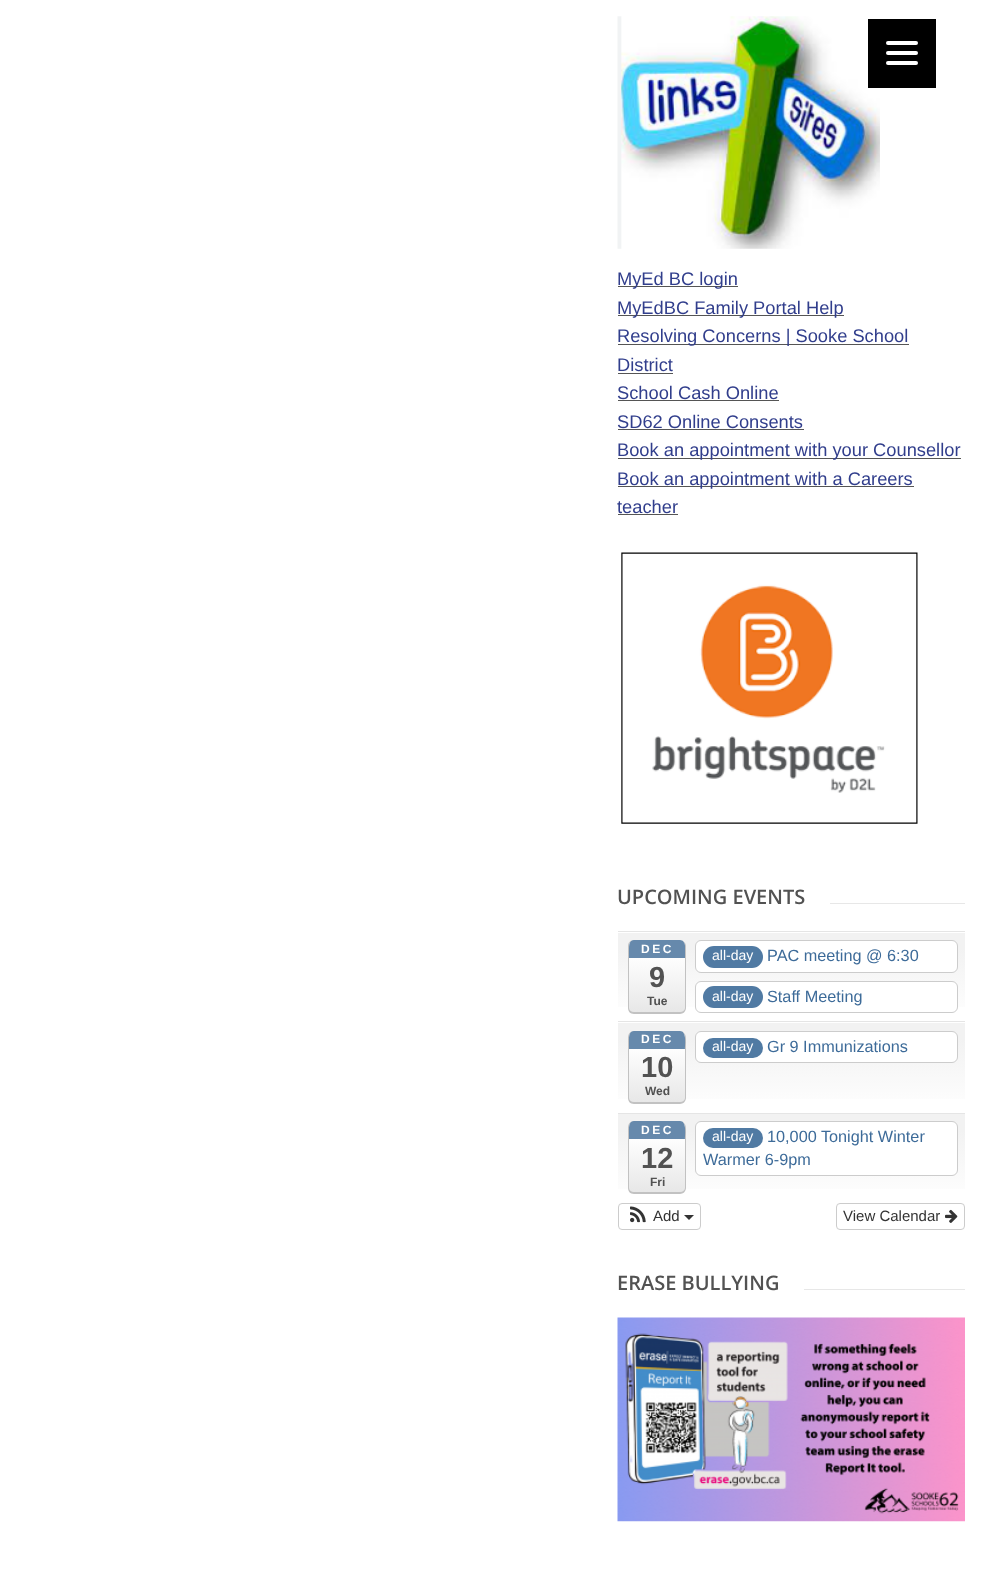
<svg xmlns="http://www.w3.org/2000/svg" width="985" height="1570">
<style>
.a{font:18.3px Liberation Sans;fill:#313e8c}
.b{font:600 20px Open Sans;fill:#525252}
.c{font:bold 12px Liberation Sans;letter-spacing:2.5px;fill:#fff}
.d{font:bold 29px Liberation Sans;fill:#525252}
.e{font:bold 12px Liberation Sans;fill:#525252}
.f{font:14px Liberation Sans;fill:#fff}
.g{font:16.25px Liberation Sans;fill:#3d6b99}
.h{font:15px Liberation Sans;fill:#333}
</style>
<defs>
<linearGradient id="g1" gradientUnits="userSpaceOnUse" x1="791" y1="933" x2="791" y2="1021"><stop offset="0" stop-color="#f2f2f2"/><stop offset="0.18" stop-color="#f2f2f2"/><stop offset="1" stop-color="#fff"/></linearGradient>
<clipPath id="clip1"><rect x="628" y="940" width="58" height="74" rx="6"/></clipPath>
<linearGradient id="g2" gradientUnits="userSpaceOnUse" x1="657" y1="940" x2="657" y2="1013"><stop offset="0" stop-color="#fff"/><stop offset="0.2" stop-color="#fff"/><stop offset="1" stop-color="#e7e7e7"/></linearGradient>
<linearGradient id="g3" gradientUnits="userSpaceOnUse" x1="791" y1="1023" x2="791" y2="1113"><stop offset="0" stop-color="#f2f2f2"/><stop offset="0.18" stop-color="#f2f2f2"/><stop offset="1" stop-color="#fff"/></linearGradient>
<clipPath id="clip2"><rect x="628" y="1031" width="58" height="73" rx="6"/></clipPath>
<linearGradient id="g4" gradientUnits="userSpaceOnUse" x1="657" y1="1031" x2="657" y2="1103"><stop offset="0" stop-color="#fff"/><stop offset="0.21" stop-color="#fff"/><stop offset="1" stop-color="#e7e7e7"/></linearGradient>
<linearGradient id="g5" gradientUnits="userSpaceOnUse" x1="791" y1="1114" x2="791" y2="1203"><stop offset="0" stop-color="#f2f2f2"/><stop offset="0.18" stop-color="#f2f2f2"/><stop offset="1" stop-color="#fff"/></linearGradient>
<clipPath id="clip3"><rect x="628" y="1121" width="58" height="73" rx="6"/></clipPath>
<linearGradient id="g6" gradientUnits="userSpaceOnUse" x1="657" y1="1121" x2="657" y2="1193"><stop offset="0" stop-color="#fff"/><stop offset="0.21" stop-color="#fff"/><stop offset="1" stop-color="#e7e7e7"/></linearGradient>
</defs>
<rect width="100%" height="100%" fill="#fff"/>
<image href="1.png" x="617" y="16" width="263" height="233"/>
<path fill="#000" d="M868 19h68v69H868z"/>
<rect fill="#fff" x="886" y="51" width="32" height="4" rx="2"/>
<rect fill="#fff" x="886" y="41" width="32" height="4" rx="2"/>
<rect fill="#fff" x="886" y="61" width="32" height="4" rx="2"/>
<path fill="#555" d="M618 286h120v1H618z"/>
<path fill="#555" d="M618 315h226v1H618z"/>
<path fill="#555" d="M618 344h291v1H618z"/>
<path fill="#555" d="M618 373h55v1H618z"/>
<path fill="#555" d="M618 400h161v1H618z"/>
<path fill="#555" d="M618 429h186v1H618z"/>
<path fill="#555" d="M618 458h343v1H618z"/>
<path fill="#555" d="M618 486h296v1H618z"/>
<path fill="#555" d="M618 514h60v1H618z"/>
<image href="2.png" x="621" y="552" width="297" height="272"/>
<path fill="#e7e7e7" d="M830 903h135v1H830z"/>
<path fill="url(#g1)" d="M618 933h347v74H618z"/>
<path fill="#e5e5e5" d="M618 931h347v1H618z"/>
<g clip-path="url(#clip1)">
<path fill="url(#g2)" d="M629 940h56v73H629z"/>
</g>
<path fill="#c2c2c2" fill-rule="evenodd" d="M634 940h46c3 0 6 3 6 6v62c0 3-3 6-6 6h-46c-4 0-6-3-6-6v-62c0-3 2-6 6-6zm0 0h46c3 0 5 3 5 6v62c0 2-2 4-5 4h-46c-3 0-5-2-5-4v-62c0-3 2-6 5-6z"/>
<path fill="#6689ac" d="M634 940h46c3 0 5 3 5 6v12h-56v-9c0-3 0-9 5-9z"/>
<rect fill="#fff" stroke="#ccc" x="695.5" y="940.5" width="262" height="32" rx="5.5"/>
<rect fill="#507aa3" x="703" y="946" width="60" height="22" rx="11"/>
<rect fill="#fff" stroke="#ccc" x="695.5" y="981.5" width="262" height="31" rx="5.5"/>
<rect fill="#507aa3" x="703" y="986" width="60" height="22" rx="11"/>
<path fill="url(#g3)" d="M618 1023h347v76H618z"/>
<path fill="#e5e5e5" d="M618 1021h347v1H618z"/>
<g clip-path="url(#clip2)">
<path fill="url(#g4)" d="M629 1031h56v72H629z"/>
</g>
<path fill="#c2c2c2" fill-rule="evenodd" d="M634 1031h46c3 0 6 3 6 7v60c0 3-3 6-6 6h-46c-4 0-6-3-6-6v-60c0-4 2-7 6-7zm0 0h46c3 0 5 3 5 7v60c0 2-2 4-5 4h-46c-3 0-5-2-5-4v-60c0-4 2-7 5-7z"/>
<path fill="#6689ac" d="M634 1031c-5 0-5 6-5 9v9h56c0-4 2-18-5-18z"/>
<rect fill="#fff" stroke="#ccc" x="695.5" y="1031.5" width="262" height="31" rx="5.5"/>
<rect fill="#507aa3" x="703" y="1038" width="60" height="20" rx="10"/>
<path fill="url(#g5)" d="M618 1114h347v75H618z"/>
<path fill="#e5e5e5" d="M618 1113h347v1H618z"/>
<g clip-path="url(#clip3)">
<path fill="url(#g6)" d="M629 1121h56v72H629z"/>
</g>
<path fill="#c2c2c2" fill-rule="evenodd" d="M634 1121h46c3 0 6 3 6 7v60c0 3-3 6-6 6h-46c-4 0-6-3-6-6v-60c0-4 2-7 6-7zm0 0h46c3 0 5 3 5 7v60c0 2-2 4-5 4h-46c-3 0-5-2-5-4v-60c0-4 2-7 5-7z"/>
<path fill="#6689ac" d="M634 1121c-5 0-5 6-5 9v9h56c0-4 2-18-5-18z"/>
<rect fill="#fff" stroke="#ccc" x="695.5" y="1121.5" width="262" height="54" rx="5.5"/>
<rect fill="#507aa3" x="703" y="1128" width="60" height="20" rx="10"/>
<rect fill="none" stroke="#ccc" x="618.5" y="1203.5" width="82" height="26" rx="3.5"/>
<image href="3.png" x="630" y="1206" width="16" height="17"/>
<path fill="#333" d="M684 1215h10l-5 5z"/>
<rect fill="none" stroke="#ccc" x="836.5" y="1203.5" width="128" height="26" rx="3.5"/>
<image href="4.png" x="945" y="1209" width="13" height="14"/>
<path fill="#e7e7e7" d="M804 1289h161v1H804z"/>
<image href="5.png" x="617" y="1317" width="348" height="205"/>
<text class="a" x="617" y="285">MyEd BC login</text>
<text class="a" x="617" y="314">MyEdBC Family Portal Help</text>
<text class="a" x="617" y="342">Resolving Concerns | Sooke School</text>
<text class="a" x="617" y="371">District</text>
<text class="a" x="617" y="399">School Cash Online</text>
<text class="a" x="617" y="428">SD62 Online Consents</text>
<text class="a" x="617" y="456">Book an appointment with your Counsellor</text>
<text class="a" x="617" y="485">Book an appointment with a Careers</text>
<text class="a" x="617" y="513">teacher</text>
<text class="b" x="617" y="904">UPCOMING EVENTS</text>
<text class="c" x="641" y="953">DEC</text>
<text class="d" x="649" y="987">9</text>
<text class="e" x="647" y="1005">Tue</text>
<text class="f" x="712" y="960">all-day</text>
<text class="g" x="767" y="961">PAC meeting @ 6:30</text>
<text class="f" x="712" y="1001">all-day</text>
<text class="g" x="767" y="1002">Staff Meeting</text>
<text class="c" x="641" y="1043">DEC</text>
<text class="d" x="641" y="1077">10</text>
<text class="e" x="645" y="1095">Wed</text>
<text class="f" x="712" y="1051">all-day</text>
<text class="g" x="767" y="1052">Gr 9 Immunizations</text>
<text class="c" x="641" y="1134">DEC</text>
<text class="d" x="641" y="1168">12</text>
<text class="e" x="650" y="1186">Fri</text>
<text class="f" x="712" y="1141">all-day</text>
<text class="g" x="767" y="1142">10,000 Tonight Winter</text>
<text class="g" x="703" y="1165">Warmer 6-9pm</text>
<text class="h" x="653" y="1221">Add</text>
<text class="h" x="843" y="1221">View Calendar</text>
<text class="b" x="617" y="1290">ERASE BULLYING</text>
</svg>
